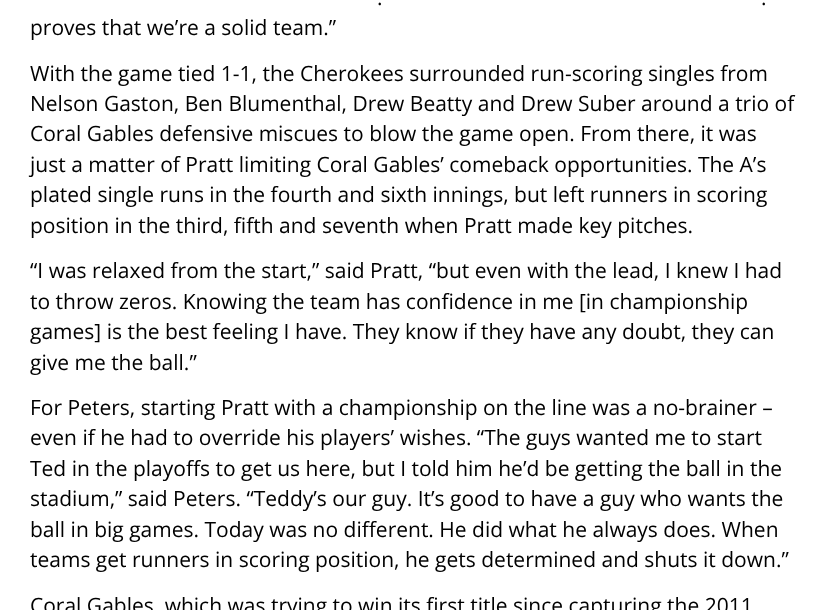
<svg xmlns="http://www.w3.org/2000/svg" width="826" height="610">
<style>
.a{font:21px Open Sans;fill:#000}
</style>
<rect width="100%" height="100%" fill="#fff"/>
<text class="a" x="377" y="5">.</text>
<text class="a" x="761" y="5">.</text>
<text class="a" x="30" y="35">proves that we’re a solid team.”</text>
<text class="a" x="30" y="81">With the game tied 1-1, the Cherokees surrounded run-scoring singles from</text>
<text class="a" x="30" y="111">Nelson Gaston, Ben Blumenthal, Drew Beatty and Drew Suber around a trio of</text>
<text class="a" x="30" y="141">Coral Gables defensive miscues to blow the game open. From there, it was</text>
<text class="a" x="30" y="172">just a matter of Pratt limiting Coral Gables’ comeback opportunities. The A’s</text>
<text class="a" x="30" y="202">plated single runs in the fourth and sixth innings, but left runners in scoring</text>
<text class="a" x="30" y="233">position in the third, fifth and seventh when Pratt made key pitches.</text>
<text class="a" x="30" y="278">“I was relaxed from the start,” said Pratt, “but even with the lead, I knew I had</text>
<text class="a" x="30" y="309">to throw zeros. Knowing the team has confidence in me [in championship</text>
<text class="a" x="30" y="339">games] is the best feeling I have. They know if they have any doubt, they can</text>
<text class="a" x="30" y="370">give me the ball.”</text>
<text class="a" x="30" y="415">For Peters, starting Pratt with a championship on the line was a no-brainer –</text>
<text class="a" x="30" y="445">even if he had to override his players’ wishes. “The guys wanted me to start</text>
<text class="a" x="30" y="476">Ted in the playoffs to get us here, but I told him he’d be getting the ball in the</text>
<text class="a" x="30" y="506">stadium,” said Peters. “Teddy’s our guy. It’s good to have a guy who wants the</text>
<text class="a" x="30" y="537">ball in big games. Today was no different. He did what he always does. When</text>
<text class="a" x="30" y="567">teams get runners in scoring position, he gets determined and shuts it down.”</text>
<text class="a" x="30" y="613">Coral Gables, which was trying to win its first title since capturing the 2011</text>
</svg>
